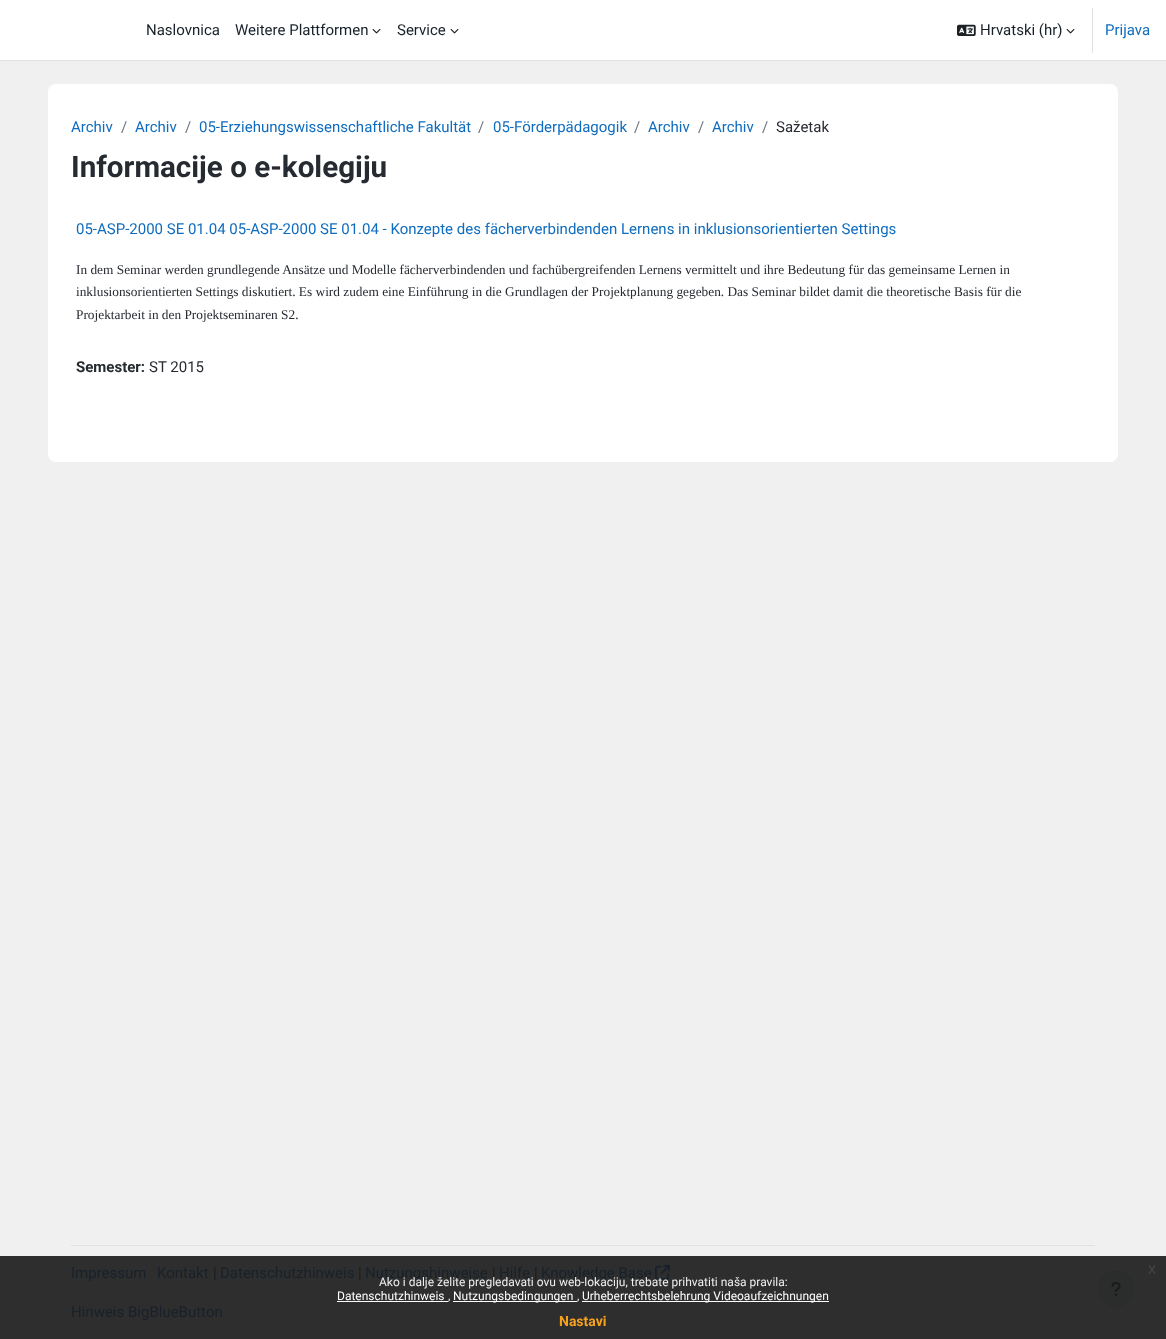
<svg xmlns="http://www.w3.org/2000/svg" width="1166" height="1339">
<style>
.a{font:15px Roboto;fill:#18212a}
.b{font:15px Roboto;fill:#0f6cbf}
.c{font:15px Roboto;fill:#6a737b}
.d{font:15px Roboto;fill:#262a31}
.e{font:bold 29.6px Roboto;fill:#262a31}
.f{font:13.33px Liberation Serif;fill:#262a31}
.g{font:bold 15px Roboto;fill:#262a31}
.h{font:15px Roboto;fill:#1a1b1b}
.i{font:16px Liberation Sans;fill:#464646}
.j{font:12px Roboto;fill:#efefef}
.k{font:12px Roboto;fill:#fff}
.l{font:bold 14px Roboto;fill:#f6a21d}
</style>
<rect width="100%" height="100%" fill="#f0f0f0"/>
<path fill="#2e2e2e" d="M0 1256h1166v83H0z"/>
<path fill="#fff" d="M0 0h1166v60H0z"/>
<path fill="#dee2e6" d="M0 60h1166v1H0z"/>
<image href="1.png" x="372" y="29" width="9" height="5"/>
<image href="1.png" x="450" y="29" width="9" height="5"/>
<image href="2.png" x="957" y="24" width="19" height="12"/>
<image href="1.png" x="1066" y="29" width="9" height="5"/>
<path fill="#dee2e6" d="M1092 8h1v45H1092z"/>
<rect fill="#fff" x="48" y="84" width="1070" height="378" rx="8"/>
<path fill="#dee2e6" d="M71 1245h1024v1H71z"/>
<image href="3.png" x="655" y="1264" width="15" height="16"/>
<circle fill="#2b2c2c" cx="1116" cy="1289" r="18"/>
<image href="4.png" x="1111" y="1282" width="10" height="14"/>
<path fill="#fff" d="M337 1301h111v1H337z"/>
<path fill="#fff" d="M453 1301h124v1H453z"/>
<path fill="#fff" d="M582 1301h247v1H582z"/>
<text class="a" x="146" y="35">Naslovnica</text>
<text class="a" x="235" y="35">Weitere Plattformen</text>
<text class="a" x="397" y="35">Service</text>
<text class="a" x="980" y="35">Hrvatski (hr)</text>
<text class="b" x="1105" y="35">Prijava</text>
<text class="b" x="71" y="132">Archiv</text>
<text class="c" x="121" y="132">/</text>
<text class="b" x="135" y="132">Archiv</text>
<text class="c" x="185" y="132">/</text>
<text class="b" x="199" y="132">05-Erziehungswissenschaftliche Fakultät</text>
<text class="c" x="478" y="132">/</text>
<text class="b" x="493" y="132">05-Förderpädagogik</text>
<text class="c" x="634" y="132">/</text>
<text class="b" x="648" y="132">Archiv</text>
<text class="c" x="698" y="132">/</text>
<text class="b" x="712" y="132">Archiv</text>
<text class="c" x="762" y="132">/</text>
<text class="d" x="776" y="132">Sažetak</text>
<text class="e" x="71" y="177">Informacije o e-kolegiju</text>
<text class="b" x="76" y="234">05-ASP-2000 SE 01.04 05-ASP-2000 SE 01.04 - Konzepte des fächerverbindenden Lernens in inklusionsorientierten Settings</text>
<text class="f" x="76" y="274">In dem Seminar werden grundlegende Ansätze und Modelle fächerverbindenden und fachübergreifenden Lernens vermittelt und ihre Bedeutung für das gemeinsame Lernen in</text>
<text class="f" x="76" y="296">inklusionsorientierten Settings diskutiert. Es wird zudem eine Einführung in die Grundlagen der Projektplanung gegeben. Das Seminar bildet damit die theoretische Basis für die</text>
<text class="f" x="76" y="319">Projektarbeit in den Projektseminaren S2.</text>
<text class="g" x="76" y="372">Semester:</text>
<text class="d" x="149" y="372">ST 2015</text>
<text class="a" x="71" y="1278">Impressum</text>
<text class="a" x="157" y="1278">Kontakt</text>
<text class="h" x="213" y="1278">|</text>
<text class="a" x="220" y="1278">Datenschutzhinweis</text>
<text class="h" x="358" y="1278">|</text>
<text class="a" x="365" y="1278">Nutzungshinweise</text>
<text class="h" x="492" y="1278">|</text>
<text class="a" x="499" y="1278">Hilfe</text>
<text class="h" x="534" y="1278">|</text>
<text class="a" x="541" y="1278">Knowledge Base</text>
<text class="a" x="71" y="1317">Hinweis BigBlueButton</text>
<text class="i" x="1148" y="1274">x</text>
<text class="j" x="379" y="1286">Ako i dalje želite pregledavati ovu web-lokaciju, trebate prihvatiti naša pravila:</text>
<text class="k" x="337" y="1300">Datenschutzhinweis</text>
<text class="j" x="448" y="1300">,</text>
<text class="k" x="453" y="1300">Nutzungsbedingungen</text>
<text class="j" x="577" y="1300">,</text>
<text class="k" x="582" y="1300">Urheberrechtsbelehrung Videoaufzeichnungen</text>
<text class="l" x="559" y="1326">Nastavi</text>
</svg>
